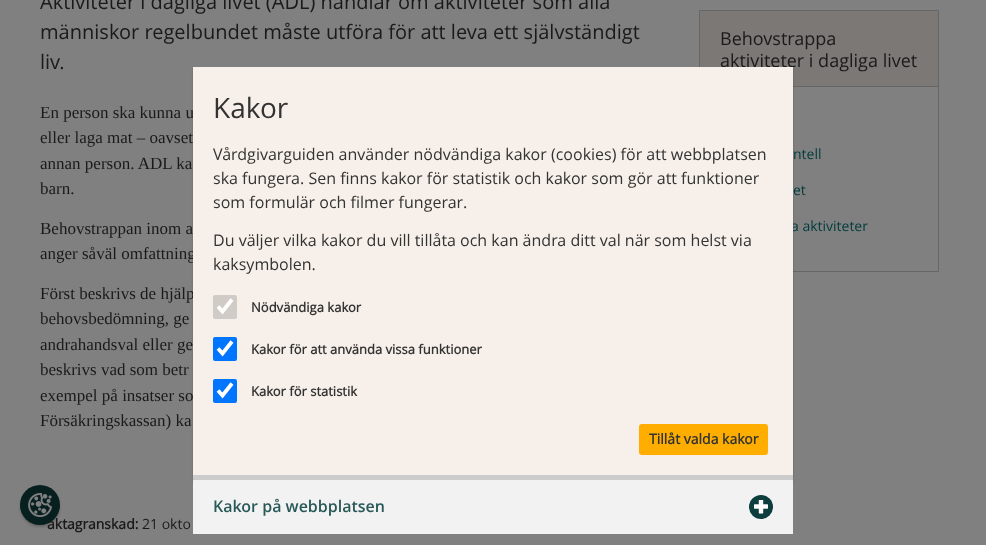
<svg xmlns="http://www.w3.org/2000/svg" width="986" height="545">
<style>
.a{font:20px Open Sans;fill:#1a1a1a}
.b{font:17px Liberation Serif;fill:#1a1a1a}
.c{font:bold 14px Open Sans;fill:#1a1a1a}
.d{font:14px Open Sans;fill:#1a1a1a}
.e{font:18px Open Sans;fill:#1a1a1a}
.f{font:14px Open Sans;fill:#003b3b}
.g{font:28px Open Sans;fill:#333}
.h{font:16px Open Sans;fill:#333}
.i{font:bold 13px Open Sans;fill:#333}
.j{font:bold 14px Open Sans;fill:#333}
.k{font:600 16px Open Sans;fill:#285857}
</style>
<rect width="100%" height="100%" fill="#808080"/>
<path fill="none" stroke="#666" d="M699.5 10.5h239v261H699.5z"/>
<path fill="#7c7875" d="M700 11h238v75H700z"/>
<path fill="#666" d="M793 86h145v1H793z"/>
<rect fill="#00000033" filter="blur(1px)" x="20" y="487" width="40" height="40" rx="20"/>
<path fill="#00000033" filter="blur(1px)" d="M193 69h600v413H193z"/>
<path fill="#ccc" d="M193 475h600v5H193z"/>
<path fill="#f2f2f2" d="M193 480h600v54H193z"/>
<circle fill="#0d3e3e" cx="761" cy="507" r="12"/>
<image href="2.png" x="754" y="500" width="14" height="14"/>
<text class="a" x="40" y="9">Aktiviteter i dagliga livet (ADL) handlar om aktiviteter som alla</text>
<text class="a" x="40" y="39">människor regelbundet måste utföra för att leva ett självständigt</text>
<text class="a" x="40" y="69">liv.</text>
<text class="b" x="40" y="118">En person ska kunna u</text>
<text class="b" x="40" y="143">eller laga mat – oavset</text>
<text class="b" x="40" y="169">annan person. ADL ka</text>
<text class="b" x="40" y="194">barn.</text>
<text class="b" x="40" y="234">Behovstrappan inom a</text>
<text class="b" x="40" y="259">anger såväl omfattning</text>
<text class="b" x="40" y="299">Först beskrivs de hjälp</text>
<text class="b" x="40" y="324">behovsbedömning, ge</text>
<text class="b" x="40" y="350">andrahandsval eller ge</text>
<text class="b" x="40" y="375">beskrivs vad som betr</text>
<text class="b" x="40" y="401">exempel på insatser so</text>
<text class="b" x="40" y="426">Försäkringskassan) ka</text>
<text class="c" x="47" y="529">aktagranskad:</text>
<text class="d" x="142" y="529">21 okto</text>
<text class="e" x="720" y="45">Behovstrappa</text>
<text class="e" x="720" y="67">aktiviteter i dagliga livet</text>
<text class="f" x="793" y="159">ntell</text>
<text class="f" x="793" y="195">et</text>
<text class="f" x="791" y="231">a aktiviteter</text>
<circle fill="#071f1f" cx="40" cy="505" r="20"/>
<image href="1.png" x="28" y="493" width="24" height="24"/>
<path fill="#f7f0ea" d="M193 67h600v408H193z"/>
<text class="g" x="213" y="118">Kakor</text>
<text class="h" x="213" y="160">Vårdgivarguiden använder nödvändiga kakor (cookies) för att webbplatsen</text>
<text class="h" x="213" y="184">ska fungera. Sen finns kakor för statistik och kakor som gör att funktioner</text>
<text class="h" x="213" y="208">som formulär och filmer fungerar.</text>
<text class="h" x="213" y="246">Du väljer vilka kakor du vill tillåta och kan ändra ditt val när som helst via</text>
<text class="h" x="213" y="270">kaksymbolen.</text>
<rect fill="#d0cbc7" x="213" y="295" width="24" height="24" rx="2"/>
<path fill="none" stroke="#fff" stroke-width="3.8" d="M218 306.5l4.5 5l9.5-12"/>
<text class="i" x="251" y="312">Nödvändiga kakor</text>
<rect fill="#0075ff" x="213" y="337" width="24" height="24" rx="2"/>
<path fill="none" stroke="#fff" stroke-width="3.8" d="M218 348.5l4.5 5l9.5-12"/>
<text class="i" x="251" y="354">Kakor för att använda vissa funktioner</text>
<rect fill="#0075ff" x="213" y="379" width="24" height="24" rx="2"/>
<path fill="none" stroke="#fff" stroke-width="3.8" d="M218 390.5l4.5 5l9.5-12"/>
<text class="i" x="251" y="396">Kakor för statistik</text>
<rect fill="#ffae00" x="639" y="424" width="129" height="31" rx="3"/>
<text class="j" x="649" y="444">Tillåt valda kakor</text>
<text class="k" x="213" y="512">Kakor på webbplatsen</text>
</svg>
